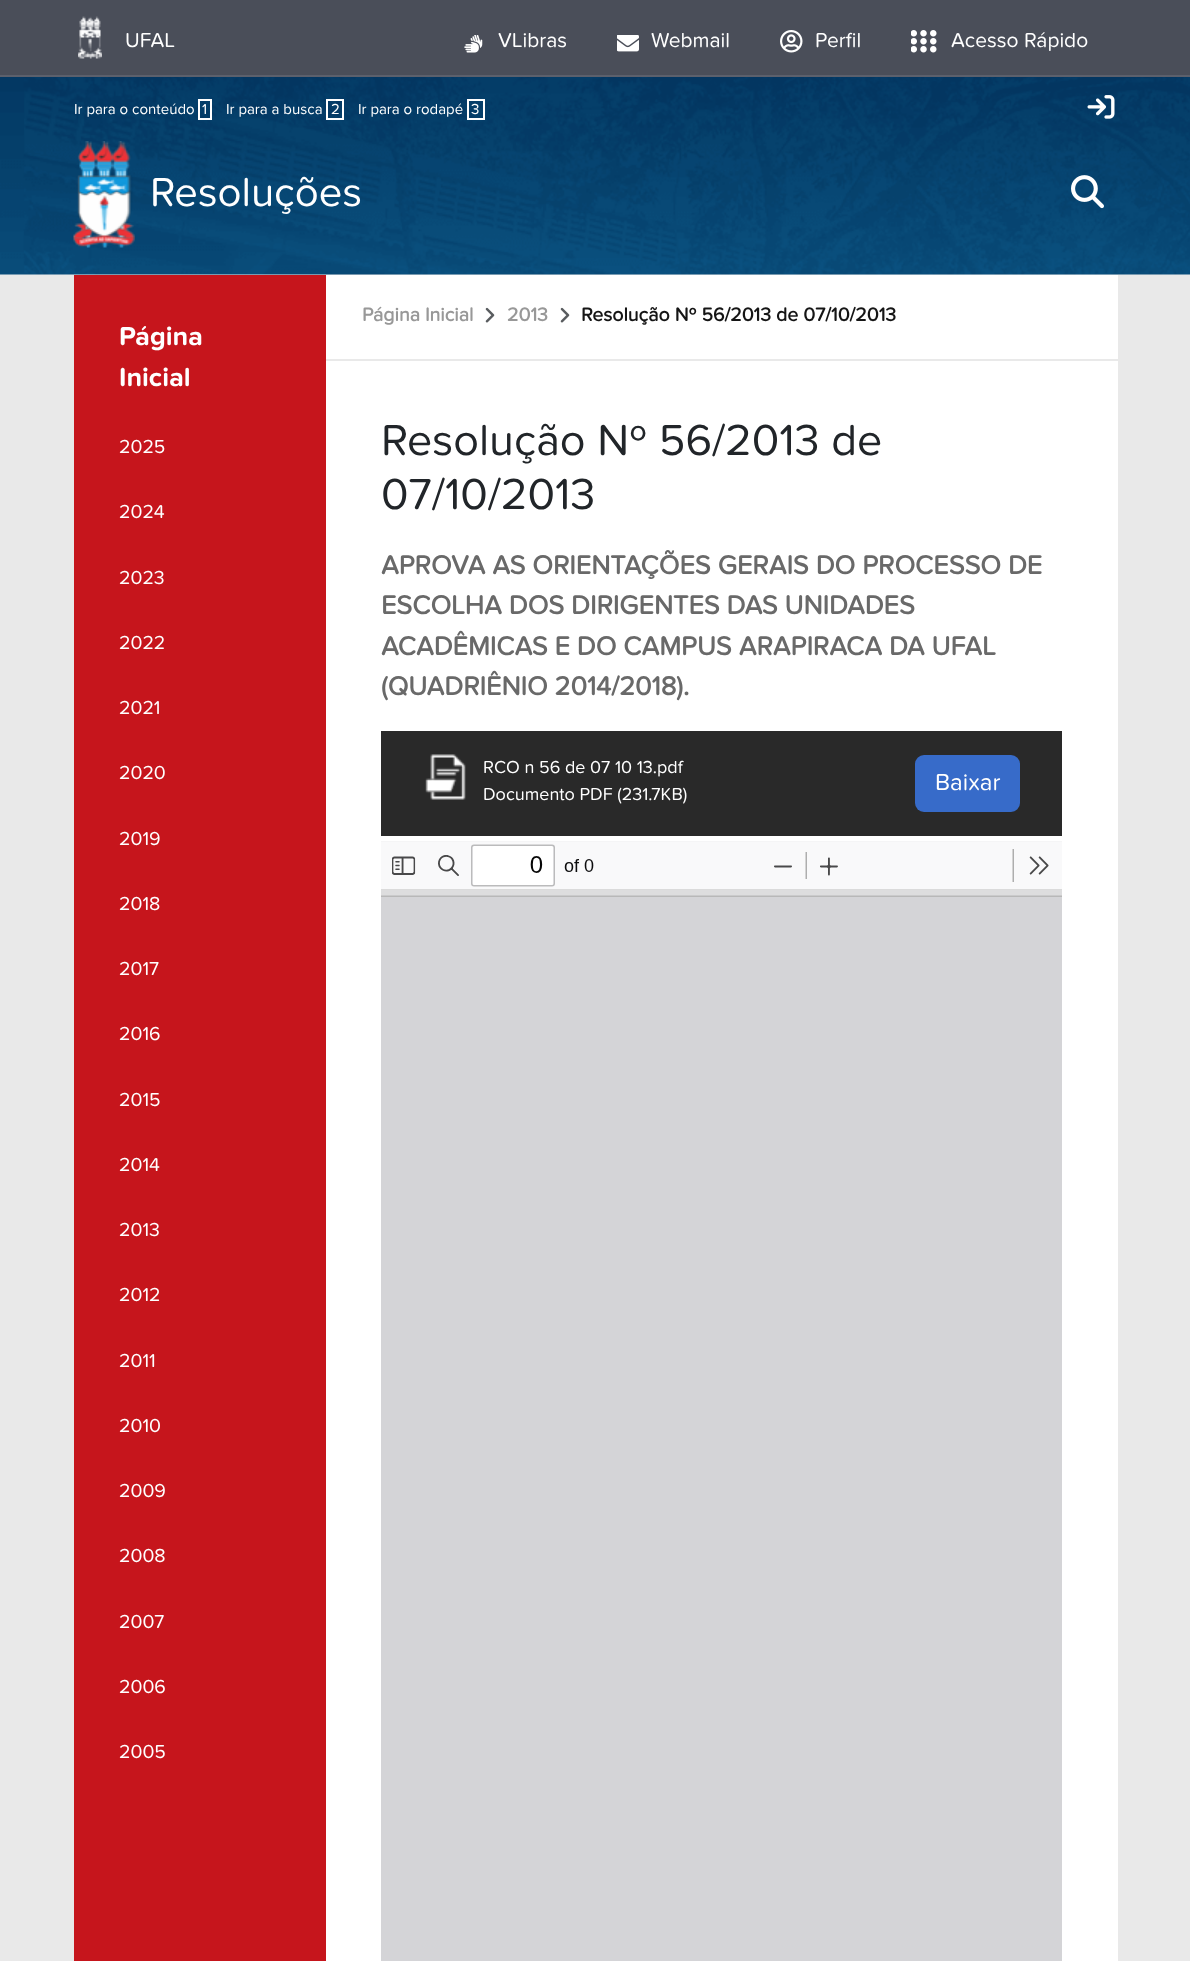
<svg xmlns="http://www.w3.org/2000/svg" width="1190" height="1961">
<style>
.a{font:21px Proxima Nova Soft;fill:#fff}
.b{font:15px Proxima Nova Soft;fill:#fff}
.c{font:42px Proxima Nova Soft;fill:#fff}
.d{font:bold 27px 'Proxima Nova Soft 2';fill:#fff}
.e{font:19.5px Proxima Nova Soft;fill:#fff}
.f{font:bold 19.5px Proxima Nova Soft;fill:#989898}
.g{font:bold 19.5px Proxima Nova Soft;fill:#151515}
.h{font:45px Proxima Nova Soft;fill:#212529}
.i{font:bold 27px Proxima Nova Soft;fill:#696969}
.j{font:18px Proxima Nova Soft;fill:#fff}
.k{font:24px Proxima Nova Soft;fill:#fff}
</style>
<rect width="100%" height="100%" fill="#e9e9e9"/>
<path fill="#4a4e59" d="M0 0h1190v75H0z"/>
<path fill="#5c606c" d="M0 75h1190v2H0z"/>
<image href="1.png" x="78" y="16" width="24" height="43"/>
<image href="2.png" x="464" y="35" width="19" height="18"/>
<image href="3.png" x="617" y="35" width="22" height="17"/>
<image href="4.png" x="780" y="30" width="23" height="23"/>
<image href="5.png" x="911" y="30" width="26" height="23"/>
<image href="6.png" x="0" y="77" width="1190" height="198"/>
<path fill="none" stroke="#fff" stroke-width="2" d="M199 100h12v19H199z"/>
<path fill="none" stroke="#fff" stroke-width="2" d="M327 100h16v19H327z"/>
<path fill="none" stroke="#fff" stroke-width="2" d="M468 100h16v19H468z"/>
<image href="7.png" x="1087" y="95" width="28" height="24"/>
<image href="8.png" x="73" y="141" width="62" height="107"/>
<image href="9.png" x="1071" y="175" width="33" height="34"/>
<path fill="#fff" d="M326 275h792v1686H326z"/>
<path fill="#c6151c" d="M74 275h252v1686H74z"/>
<path fill="#e9e9e9" d="M326 359h792v2H326z"/>
<image href="10.png" x="485" y="307" width="10" height="16"/>
<image href="10.png" x="560" y="307" width="10" height="16"/>
<path fill="#292929" d="M381 731h681v105H381z"/>
<image href="11.png" x="425" y="754" width="41" height="46"/>
<rect fill="#376bc9" x="915" y="755" width="105" height="57" rx="9"/>
<image href="12.png" x="381" y="841" width="681" height="1120"/>
<text class="a" x="125" y="47">UFAL</text>
<text class="a" x="498" y="47">VLibras</text>
<text class="a" x="651" y="47">Webmail</text>
<text class="a" x="815" y="47">Perfil</text>
<text class="a" x="951" y="47">Acesso Rápido</text>
<text class="b" x="74" y="114">Ir para o conteúdo</text>
<text class="b" x="202" y="114">1</text>
<text class="b" x="226" y="114">Ir para a busca</text>
<text class="b" x="331" y="114">2</text>
<text class="b" x="358" y="114">Ir para o rodapé</text>
<text class="b" x="471" y="114">3</text>
<text class="c" x="150" y="206">Resoluções</text>
<text class="d" x="119" y="345">Página</text>
<text class="d" x="119" y="386">Inicial</text>
<text class="e" x="119" y="453">2025</text>
<text class="e" x="119" y="518">2024</text>
<text class="e" x="119" y="584">2023</text>
<text class="e" x="119" y="649">2022</text>
<text class="e" x="119" y="714">2021</text>
<text class="e" x="119" y="779">2020</text>
<text class="e" x="119" y="845">2019</text>
<text class="e" x="119" y="910">2018</text>
<text class="e" x="119" y="975">2017</text>
<text class="e" x="119" y="1040">2016</text>
<text class="e" x="119" y="1106">2015</text>
<text class="e" x="119" y="1171">2014</text>
<text class="e" x="119" y="1236">2013</text>
<text class="e" x="119" y="1301">2012</text>
<text class="e" x="119" y="1367">2011</text>
<text class="e" x="119" y="1432">2010</text>
<text class="e" x="119" y="1497">2009</text>
<text class="e" x="119" y="1562">2008</text>
<text class="e" x="119" y="1628">2007</text>
<text class="e" x="119" y="1693">2006</text>
<text class="e" x="119" y="1758">2005</text>
<text class="f" x="362" y="321">Página Inicial</text>
<text class="f" x="507" y="321">2013</text>
<text class="g" x="581" y="321">Resolução Nº 56/2013 de 07/10/2013</text>
<text class="h" x="381" y="455">Resolução Nº 56/2013 de</text>
<text class="h" x="381" y="509">07/10/2013</text>
<text class="i" x="381" y="574">APROVA AS ORIENTAÇÕES GERAIS DO PROCESSO DE</text>
<text class="i" x="381" y="614">ESCOLHA DOS DIRIGENTES DAS UNIDADES</text>
<text class="i" x="381" y="655">ACADÊMICAS E DO CAMPUS ARAPIRACA DA UFAL</text>
<text class="i" x="381" y="695">(QUADRIÊNIO 2014/2018).</text>
<text class="j" x="483" y="773">RCO n 56 de 07 10 13.pdf</text>
<text class="j" x="483" y="800">Documento PDF (231.7KB)</text>
<text class="k" x="935" y="790">Baixar</text>
</svg>
